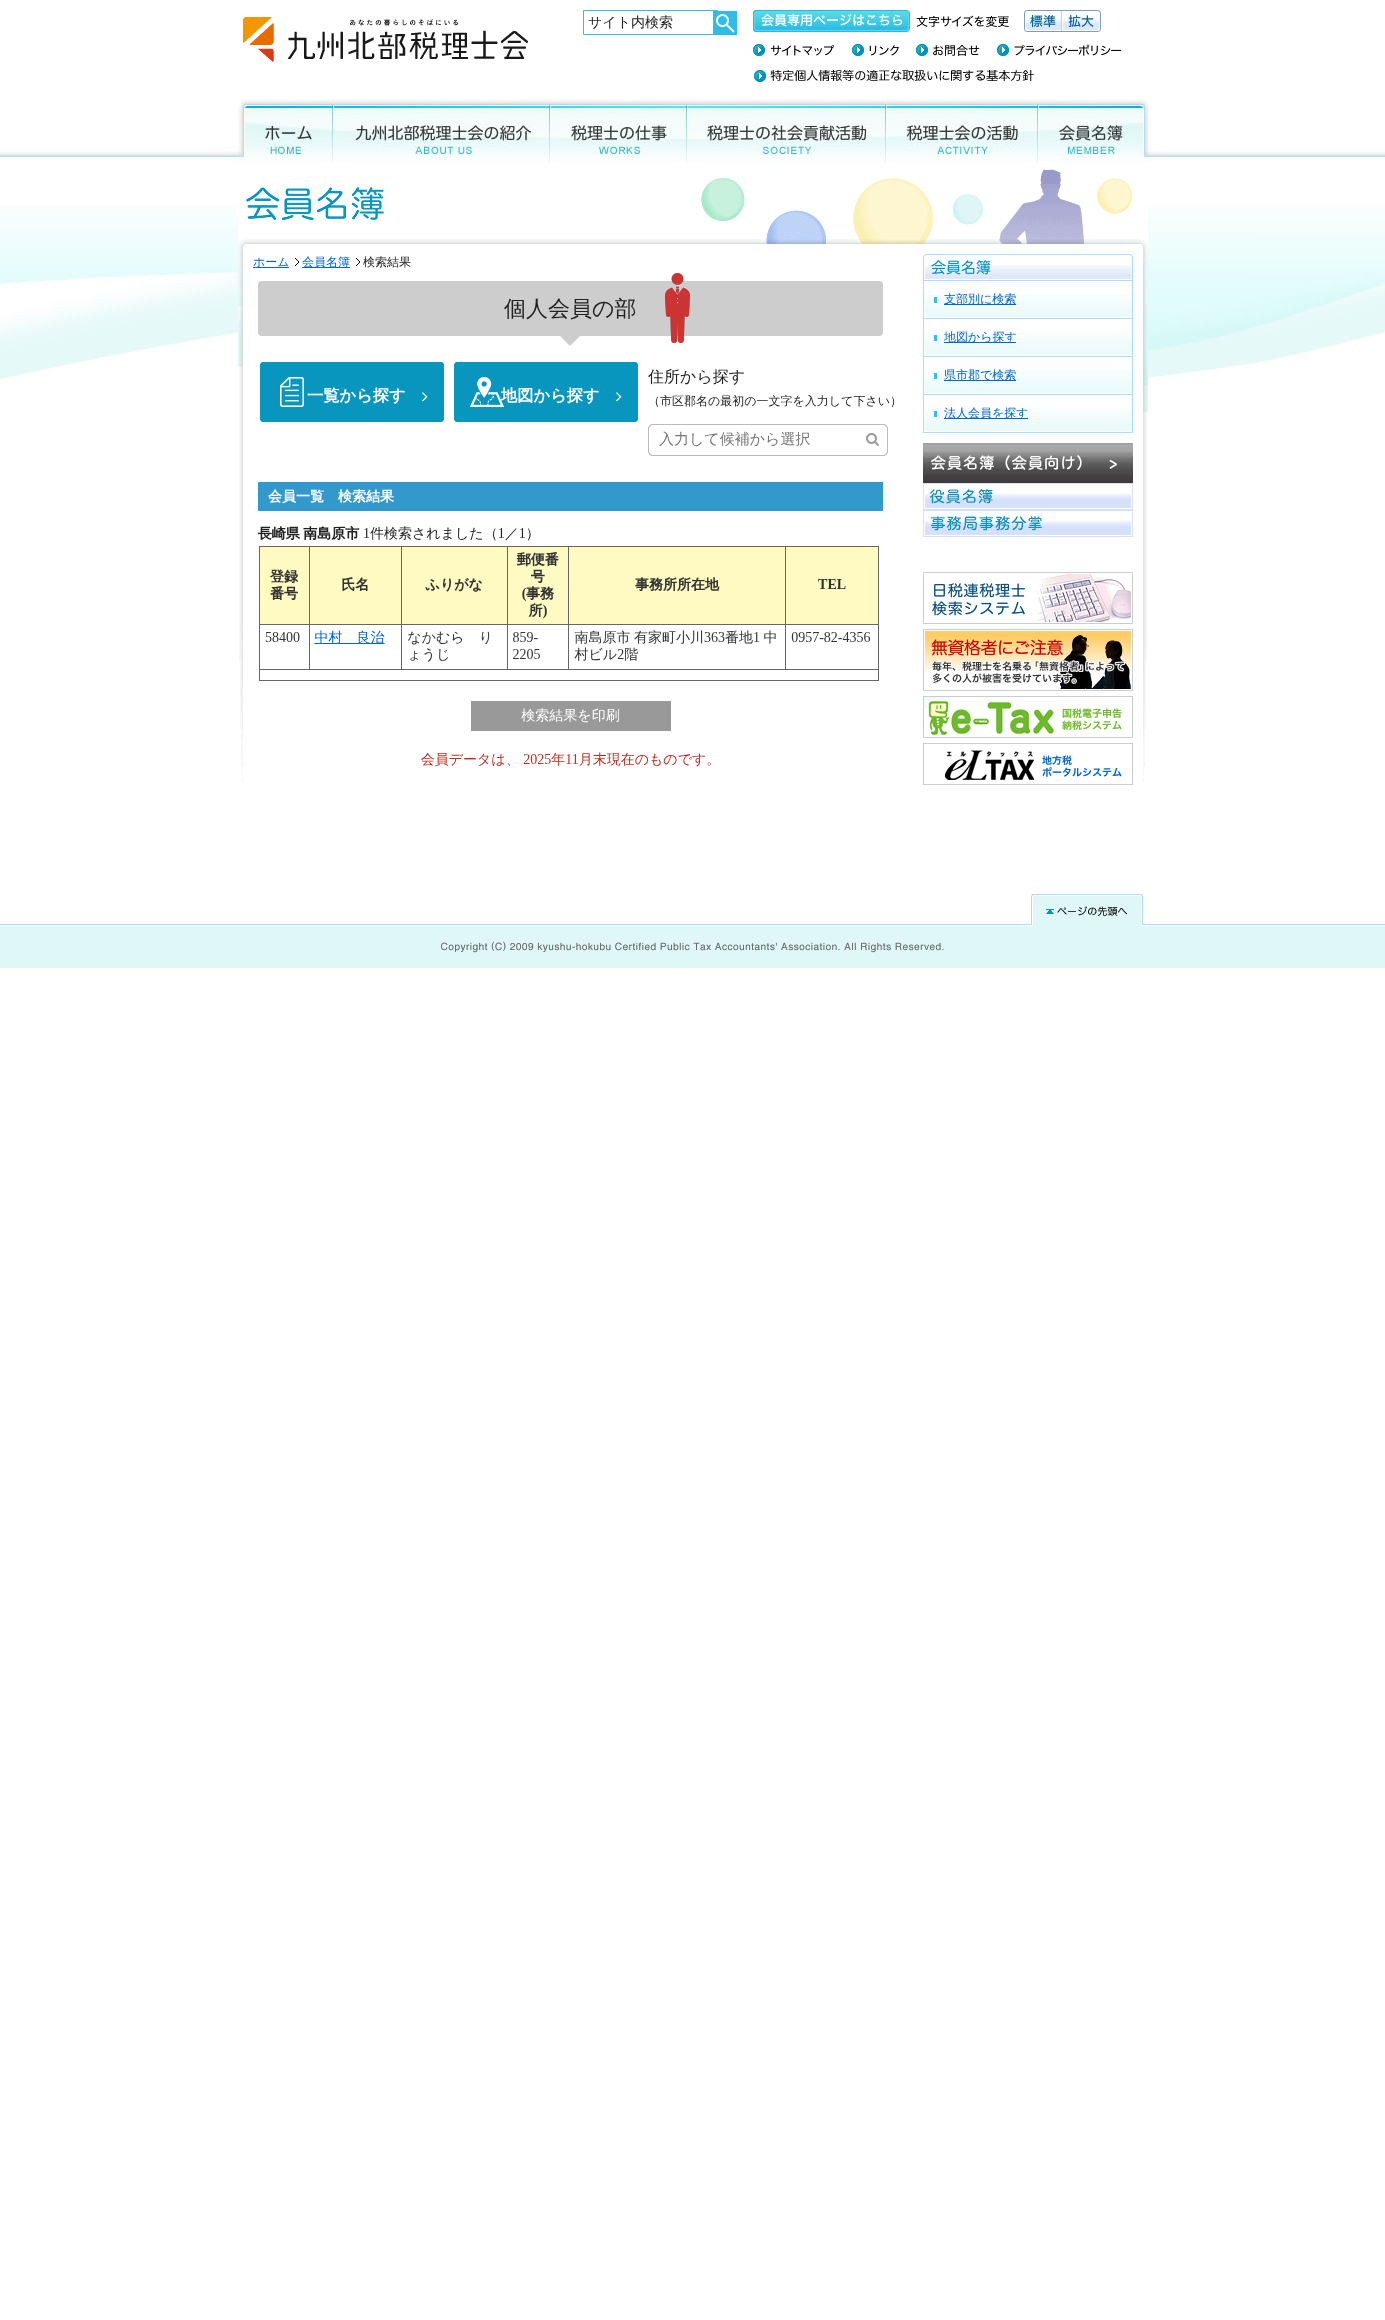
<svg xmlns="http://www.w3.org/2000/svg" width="1385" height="2320">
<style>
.a{font:500 14px WenQuanYi Zen Hei;fill:#222}
.b{font:500 12px WenQuanYi Zen Hei;fill:#06c}
.c{font:500 12px WenQuanYi Zen Hei;fill:#222}
.d{font:500 22px WenQuanYi Zen Hei;fill:#222}
.e{font:bold 16.25px WenQuanYi Zen Hei;fill:#fff}
.f{font:500 16px WenQuanYi Zen Hei;fill:#222}
.g{font:500 15px WenQuanYi Zen Hei;fill:#757575}
.h{font:bold 14px WenQuanYi Zen Hei;fill:#fff}
</style>
<rect width="100%" height="100%" fill="#fff"/>
<image href="1.png" x="0" y="206" width="1385" height="181"/>
<image href="2.png" x="243" y="17" width="285" height="45"/>
<path fill="none" stroke="#2fbde5" d="M583.5 10.5h134v24H583.5z"/>
<image href="3.png" x="713" y="11" width="24" height="24"/>
<image href="4.png" x="753" y="10" width="157" height="22"/>
<image href="5.png" x="916" y="15" width="93" height="12"/>
<image href="6.png" x="1024" y="10" width="38" height="22"/>
<image href="7.png" x="1062" y="10" width="39" height="22"/>
<image href="8.png" x="753" y="44" width="82" height="12"/>
<image href="9.png" x="852" y="44" width="47" height="12"/>
<image href="10.png" x="916" y="44" width="64" height="12"/>
<image href="11.png" x="997" y="44" width="125" height="12"/>
<image href="12.png" x="754" y="70" width="280" height="12"/>
<image href="13.png" x="0" y="151" width="1385" height="6"/>
<image href="14.png" x="233" y="99" width="920" height="65"/>
<image href="15.png" x="238" y="169" width="910" height="75"/>
<image href="16.png" x="238" y="244" width="910" height="538"/>
<path fill="#06c" d="M253 267h36v1H253z"/>
<image href="17.png" x="295" y="258" width="4" height="8"/>
<path fill="#06c" d="M302 267h48v1H302z"/>
<image href="17.png" x="356" y="258" width="4" height="8"/>
<rect fill="#cdcdcd" x="258" y="281" width="625" height="55" rx="4"/>
<image href="18.png" x="665" y="273" width="25" height="70"/>
<path fill="#cdcdcd" d="M560 336h20l-10 10z"/>
<rect fill="#0896be" x="260" y="362" width="184" height="60" rx="4"/>
<image href="19.png" x="280" y="377" width="24" height="30"/>
<rect fill="none" stroke="#0896be" stroke-width="2" x="261" y="363" width="182" height="58" rx="3"/>
<image href="20.png" x="422" y="392" width="6" height="10"/>
<rect fill="#0896be" x="454" y="362" width="184" height="60" rx="4"/>
<image href="21.png" x="470" y="377" width="34" height="30"/>
<rect fill="none" stroke="#0896be" stroke-width="2" x="455" y="363" width="182" height="58" rx="3"/>
<image href="20.png" x="616" y="392" width="6" height="10"/>
<path fill="#bbb" fill-rule="evenodd" d="M653 424h205v32h-205c-3 0-5-2-5-5v-22c0-3 2-5 5-5zm0 1h205v30h-205c-2 0-4-2-4-4v-22c0-2 2-4 4-4z"/>
<path fill="#bbb" fill-rule="evenodd" d="M858 424h25c3 0 5 2 5 5v22c0 3-2 5-5 5h-25zm0 1h25c2 0 4 2 4 4v22c0 2-2 4-4 4h-25z"/>
<image href="22.png" x="866" y="433" width="13" height="13"/>
<path fill="#39c" d="M258 482h625v29H258z"/>
<image href="23.png" x="258" y="525" width="621" height="242"/>
<image href="24.png" x="923" y="254" width="210" height="27"/>
<image href="25.png" x="925" y="294" width="206" height="23"/>
<path fill="#acdbff" d="M1132 281h1v152H1132z"/>
<path fill="#acdbff" d="M923 318h210v1H923z"/>
<path fill="#acdbff" d="M923 281h1v38H923z"/>
<path fill="#34c1e5" d="M934 297h3v6H934z"/>
<path fill="#06c" d="M944 304h72v1H944z"/>
<image href="25.png" x="925" y="332" width="206" height="23"/>
<path fill="#acdbff" d="M923 356h210v1H923z"/>
<path fill="#acdbff" d="M923 319h1v38H923z"/>
<path fill="#34c1e5" d="M934 335h3v6H934z"/>
<path fill="#06c" d="M944 342h72v1H944z"/>
<image href="25.png" x="925" y="370" width="206" height="23"/>
<path fill="#acdbff" d="M923 394h210v1H923z"/>
<path fill="#acdbff" d="M923 357h1v38H923z"/>
<path fill="#34c1e5" d="M934 373h3v6H934z"/>
<path fill="#06c" d="M944 380h72v1H944z"/>
<image href="25.png" x="925" y="408" width="206" height="23"/>
<path fill="#acdbff" d="M923 432h210v1H923z"/>
<path fill="#acdbff" d="M923 395h1v38H923z"/>
<path fill="#34c1e5" d="M934 411h3v6H934z"/>
<path fill="#06c" d="M944 418h84v1H944z"/>
<image href="26.png" x="923" y="443" width="210" height="40"/>
<image href="27.png" x="923" y="483" width="210" height="27"/>
<image href="28.png" x="923" y="510" width="210" height="27"/>
<image href="29.png" x="923" y="572" width="210" height="52"/>
<image href="30.png" x="923" y="629" width="210" height="62"/>
<image href="31.png" x="923" y="696" width="210" height="42"/>
<image href="32.png" x="923" y="743" width="210" height="42"/>
<path fill="#e0f7f7" d="M0 926h1385v42H0z"/>
<image href="33.png" x="0" y="894" width="1385" height="32"/>
<image href="34.png" x="1031" y="894" width="112" height="32"/>
<image href="35.png" x="441" y="941" width="503" height="12"/>
<text class="a" x="588" y="27">サイト内検索</text>
<text class="b" x="253" y="266">ホーム</text>
<text class="b" x="302" y="266">会員名簿</text>
<text class="c" x="363" y="266">検索結果</text>
<text class="d" x="504" y="316">個人会員の部</text>
<text class="e" x="307" y="401">一覧から探す</text>
<text class="e" x="501" y="401">地図から探す</text>
<text class="f" x="648" y="382">住所から探す</text>
<text class="c" x="648" y="405">（市区郡名の最初の一文字を入力して下さい）</text>
<text class="g" x="659" y="444">入力して候補から選択</text>
<text class="h" x="268" y="501">会員一覧　検索結果</text>
<text class="b" x="944" y="303">支部別に検索</text>
<text class="b" x="944" y="341">地図から探す</text>
<text class="b" x="944" y="379">県市郡で検索</text>
<text class="b" x="944" y="417">法人会員を探す</text>
</svg>
